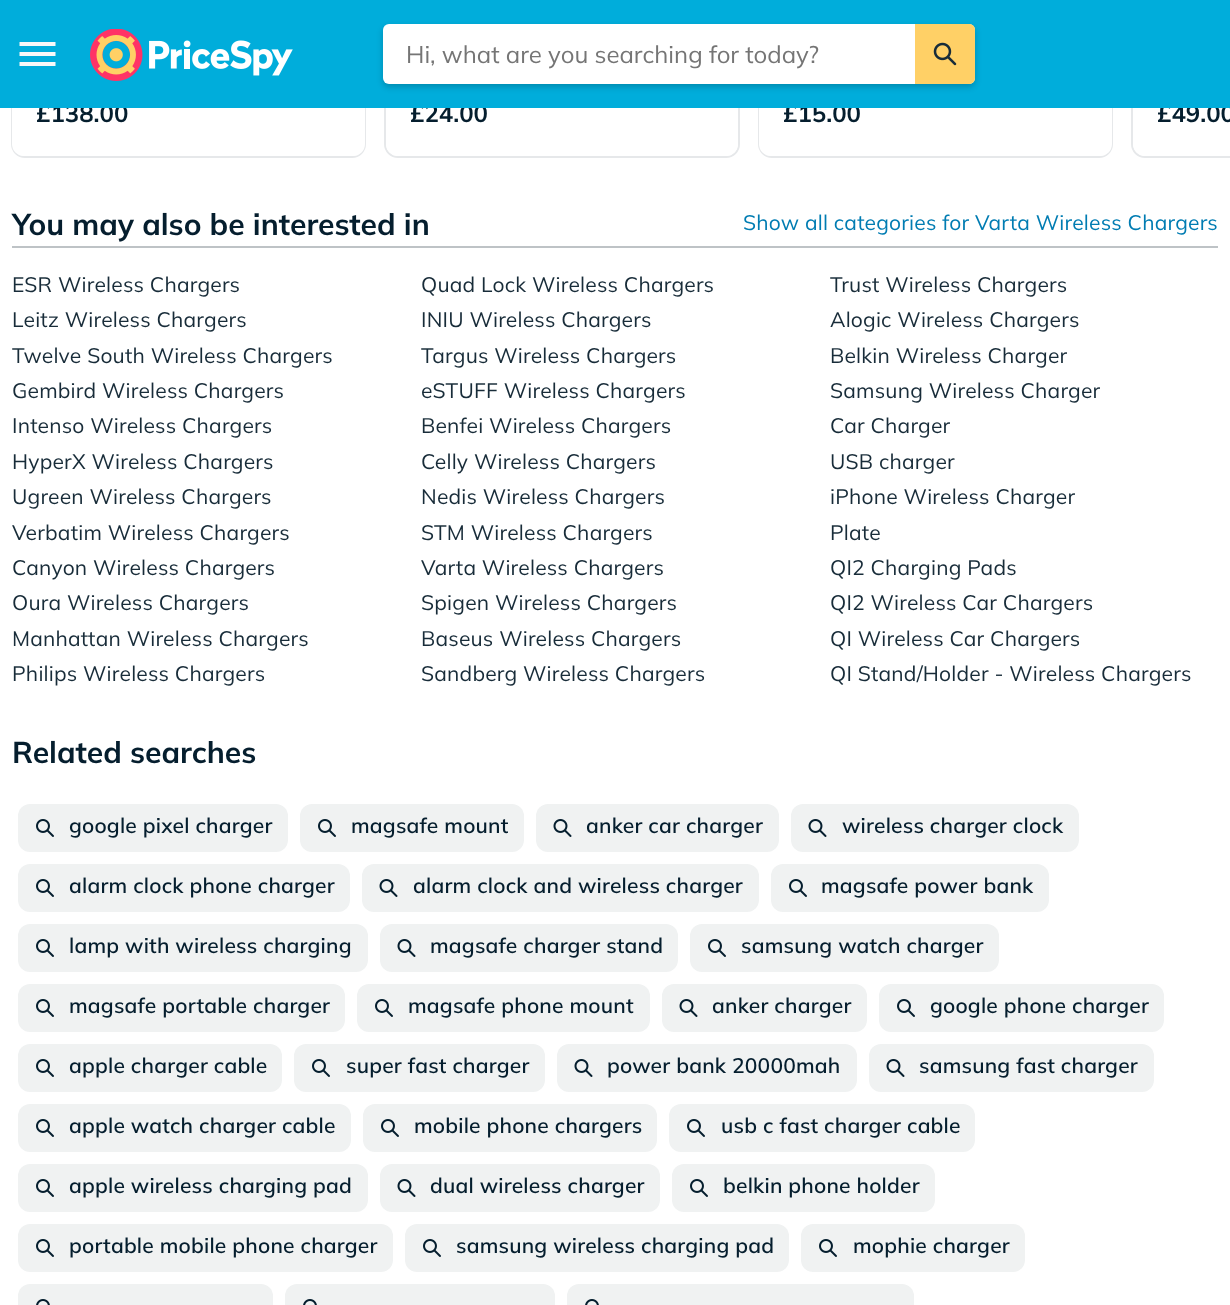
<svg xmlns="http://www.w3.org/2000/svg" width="1230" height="1305">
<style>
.a{font:bold 24px Mulish;fill:#051e2e}
.b{font:24px Mulish;fill:#757575}
.c{font:bold 30px Mulish;fill:#051e2e}
.d{font:21px Mulish;letter-spacing:0.2px;fill:#007cb2}
.e{font:21px Mulish;letter-spacing:0.2px;fill:#182c39}
.f{font:600 21px Mulish;letter-spacing:0.2px;fill:#051e2e}
</style>
<rect width="100%" height="100%" fill="#fff"/>
<rect fill="none" stroke="#e6e8ea" stroke-width="2" x="12" y="-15" width="353" height="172" rx="13"/>
<rect fill="#fff" x="12" y="-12" width="353" height="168" rx="12"/>
<rect fill="none" stroke="#e6e8ea" stroke-width="2" x="385" y="-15" width="354" height="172" rx="13"/>
<rect fill="#fff" x="386" y="-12" width="352" height="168" rx="12"/>
<rect fill="none" stroke="#e6e8ea" stroke-width="2" x="759" y="-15" width="353" height="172" rx="13"/>
<rect fill="#fff" x="759" y="-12" width="353" height="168" rx="12"/>
<rect fill="none" stroke="#e6e8ea" stroke-width="2" x="1132" y="-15" width="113" height="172" rx="13"/>
<path fill="#fff" d="M1145-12h85v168h-85c-6.5 0-12-5.5-12-12v-144c0-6.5 5.5-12 12-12z"/>
<path fill="#bec3c6" d="M12 246h1206v2H12z"/>
<rect fill="#f0f2f2" x="18" y="804" width="270" height="48" rx="12"/>
<image href="3.png" x="36" y="819" width="18" height="18"/>
<rect fill="#f0f2f2" x="300" y="804" width="224" height="48" rx="12"/>
<image href="3.png" x="318" y="819" width="18" height="18"/>
<rect fill="#f0f2f2" x="536" y="804" width="243" height="48" rx="12"/>
<image href="4.png" x="553" y="819" width="19" height="18"/>
<rect fill="#f0f2f2" x="791" y="804" width="288" height="48" rx="12"/>
<image href="4.png" x="808" y="819" width="19" height="18"/>
<rect fill="#f0f2f2" x="18" y="864" width="332" height="48" rx="12"/>
<image href="3.png" x="36" y="879" width="18" height="18"/>
<rect fill="#f0f2f2" x="362" y="864" width="397" height="48" rx="12"/>
<image href="4.png" x="379" y="879" width="19" height="18"/>
<rect fill="#f0f2f2" x="771" y="864" width="278" height="48" rx="12"/>
<image href="3.png" x="789" y="879" width="18" height="18"/>
<rect fill="#f0f2f2" x="18" y="924" width="350" height="48" rx="12"/>
<image href="3.png" x="36" y="939" width="18" height="18"/>
<rect fill="#f0f2f2" x="380" y="924" width="298" height="48" rx="12"/>
<image href="4.png" x="397" y="939" width="19" height="18"/>
<rect fill="#f0f2f2" x="690" y="924" width="309" height="48" rx="12"/>
<image href="3.png" x="708" y="939" width="18" height="18"/>
<rect fill="#f0f2f2" x="18" y="984" width="327" height="48" rx="12"/>
<image href="3.png" x="36" y="999" width="18" height="18"/>
<rect fill="#f0f2f2" x="357" y="984" width="293" height="48" rx="12"/>
<image href="3.png" x="375" y="999" width="18" height="18"/>
<rect fill="#f0f2f2" x="662" y="984" width="205" height="48" rx="12"/>
<image href="4.png" x="679" y="999" width="19" height="18"/>
<rect fill="#f0f2f2" x="879" y="984" width="285" height="48" rx="12"/>
<image href="3.png" x="897" y="999" width="18" height="18"/>
<rect fill="#f0f2f2" x="18" y="1044" width="264" height="48" rx="12"/>
<image href="3.png" x="36" y="1059" width="18" height="18"/>
<rect fill="#f0f2f2" x="294" y="1044" width="251" height="48" rx="12"/>
<image href="3.png" x="312" y="1059" width="18" height="18"/>
<rect fill="#f0f2f2" x="557" y="1044" width="300" height="48" rx="12"/>
<image href="4.png" x="574" y="1059" width="19" height="18"/>
<rect fill="#f0f2f2" x="869" y="1044" width="285" height="48" rx="12"/>
<image href="4.png" x="886" y="1059" width="19" height="18"/>
<rect fill="#f0f2f2" x="18" y="1104" width="333" height="48" rx="12"/>
<image href="3.png" x="36" y="1119" width="18" height="18"/>
<rect fill="#f0f2f2" x="363" y="1104" width="294" height="48" rx="12"/>
<image href="3.png" x="381" y="1119" width="18" height="18"/>
<rect fill="#f0f2f2" x="669" y="1104" width="306" height="48" rx="12"/>
<image href="3.png" x="687" y="1119" width="18" height="18"/>
<rect fill="#f0f2f2" x="18" y="1164" width="350" height="48" rx="12"/>
<image href="3.png" x="36" y="1179" width="18" height="18"/>
<rect fill="#f0f2f2" x="380" y="1164" width="280" height="48" rx="12"/>
<image href="4.png" x="397" y="1179" width="19" height="18"/>
<rect fill="#f0f2f2" x="672" y="1164" width="263" height="48" rx="12"/>
<image href="3.png" x="690" y="1179" width="18" height="18"/>
<rect fill="#f0f2f2" x="18" y="1224" width="375" height="48" rx="12"/>
<image href="3.png" x="36" y="1239" width="18" height="18"/>
<rect fill="#f0f2f2" x="405" y="1224" width="384" height="48" rx="12"/>
<image href="3.png" x="423" y="1239" width="18" height="18"/>
<rect fill="#f0f2f2" x="801" y="1224" width="224" height="48" rx="12"/>
<image href="3.png" x="819" y="1239" width="18" height="18"/>
<rect fill="#f0f2f2" x="18" y="1284" width="255" height="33" rx="12"/>
<image href="5.png" x="36" y="1299" width="14" height="6"/>
<rect fill="#f0f2f2" x="285" y="1284" width="270" height="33" rx="12"/>
<image href="5.png" x="303" y="1299" width="14" height="6"/>
<rect fill="#f0f2f2" x="567" y="1284" width="347" height="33" rx="12"/>
<image href="5.png" x="585" y="1299" width="14" height="6"/>
<text class="a" x="36" y="122">£138.00</text>
<text class="a" x="410" y="122">£24.00</text>
<text class="a" x="783" y="122">£15.00</text>
<text class="a" x="1157" y="122">£49.00</text>
<path fill="#00addb" d="M0 0h1230v108H0z"/>
<rect fill="#00000033" filter="blur(3px)" x="383" y="27" width="592" height="60" rx="6"/>
<rect fill="#fff" x="383" y="24" width="592" height="60" rx="6"/>
<path fill="#ffd066" d="M915 24h54c3.5 0 6 2.5 6 6v48c0 3.5-2.5 6-6 6h-54z"/>
<image href="2.png" x="933" y="42" width="24" height="24"/>
<text class="b" x="406" y="63">Hi, what are you searching for today?</text>
<path fill="#f7f8f8" fill-rule="evenodd" d="M19.5 66h36v-4h-36zm0-10h36v-4h-36zm0-14v4h36v-4z"/>
<image href="1.png" x="90" y="29" width="203" height="52"/>
<text class="c" x="12" y="235">You may also be interested in</text>
<text class="d" x="743" y="230">Show all categories for Varta Wireless Chargers</text>
<text class="e" x="12" y="292">ESR Wireless Chargers</text>
<text class="e" x="421" y="292">Quad Lock Wireless Chargers</text>
<text class="e" x="830" y="292">Trust Wireless Chargers</text>
<text class="e" x="12" y="327">Leitz Wireless Chargers</text>
<text class="e" x="421" y="327">INIU Wireless Chargers</text>
<text class="e" x="830" y="327">Alogic Wireless Chargers</text>
<text class="e" x="12" y="363">Twelve South Wireless Chargers</text>
<text class="e" x="421" y="363">Targus Wireless Chargers</text>
<text class="e" x="830" y="363">Belkin Wireless Charger</text>
<text class="e" x="12" y="398">Gembird Wireless Chargers</text>
<text class="e" x="421" y="398">eSTUFF Wireless Chargers</text>
<text class="e" x="830" y="398">Samsung Wireless Charger</text>
<text class="e" x="12" y="433">Intenso Wireless Chargers</text>
<text class="e" x="421" y="433">Benfei Wireless Chargers</text>
<text class="e" x="830" y="433">Car Charger</text>
<text class="e" x="12" y="469">HyperX Wireless Chargers</text>
<text class="e" x="421" y="469">Celly Wireless Chargers</text>
<text class="e" x="830" y="469">USB charger</text>
<text class="e" x="12" y="504">Ugreen Wireless Chargers</text>
<text class="e" x="421" y="504">Nedis Wireless Chargers</text>
<text class="e" x="830" y="504">iPhone Wireless Charger</text>
<text class="e" x="12" y="540">Verbatim Wireless Chargers</text>
<text class="e" x="421" y="540">STM Wireless Chargers</text>
<text class="e" x="830" y="540">Plate</text>
<text class="e" x="12" y="575">Canyon Wireless Chargers</text>
<text class="e" x="421" y="575">Varta Wireless Chargers</text>
<text class="e" x="830" y="575">QI2 Charging Pads</text>
<text class="e" x="12" y="610">Oura Wireless Chargers</text>
<text class="e" x="421" y="610">Spigen Wireless Chargers</text>
<text class="e" x="830" y="610">QI2 Wireless Car Chargers</text>
<text class="e" x="12" y="646">Manhattan Wireless Chargers</text>
<text class="e" x="421" y="646">Baseus Wireless Chargers</text>
<text class="e" x="830" y="646">QI Wireless Car Chargers</text>
<text class="e" x="12" y="681">Philips Wireless Chargers</text>
<text class="e" x="421" y="681">Sandberg Wireless Chargers</text>
<text class="e" x="830" y="681">QI Stand/Holder - Wireless Chargers</text>
<text class="c" x="12" y="763">Related searches</text>
<text class="f" x="69" y="833">google pixel charger</text>
<text class="f" x="351" y="833">magsafe mount</text>
<text class="f" x="586" y="833">anker car charger</text>
<text class="f" x="842" y="833">wireless charger clock</text>
<text class="f" x="69" y="893">alarm clock phone charger</text>
<text class="f" x="413" y="893">alarm clock and wireless charger</text>
<text class="f" x="821" y="893">magsafe power bank</text>
<text class="f" x="69" y="953">lamp with wireless charging</text>
<text class="f" x="430" y="953">magsafe charger stand</text>
<text class="f" x="741" y="953">samsung watch charger</text>
<text class="f" x="69" y="1013">magsafe portable charger</text>
<text class="f" x="408" y="1013">magsafe phone mount</text>
<text class="f" x="712" y="1013">anker charger</text>
<text class="f" x="930" y="1013">google phone charger</text>
<text class="f" x="69" y="1073">apple charger cable</text>
<text class="f" x="346" y="1073">super fast charger</text>
<text class="f" x="607" y="1073">power bank 20000mah</text>
<text class="f" x="919" y="1073">samsung fast charger</text>
<text class="f" x="69" y="1133">apple watch charger cable</text>
<text class="f" x="414" y="1133">mobile phone chargers</text>
<text class="f" x="721" y="1133">usb c fast charger cable</text>
<text class="f" x="69" y="1193">apple wireless charging pad</text>
<text class="f" x="430" y="1193">dual wireless charger</text>
<text class="f" x="723" y="1193">belkin phone holder</text>
<text class="f" x="69" y="1253">portable mobile phone charger</text>
<text class="f" x="456" y="1253">samsung wireless charging pad</text>
<text class="f" x="853" y="1253">mophie charger</text>
</svg>
